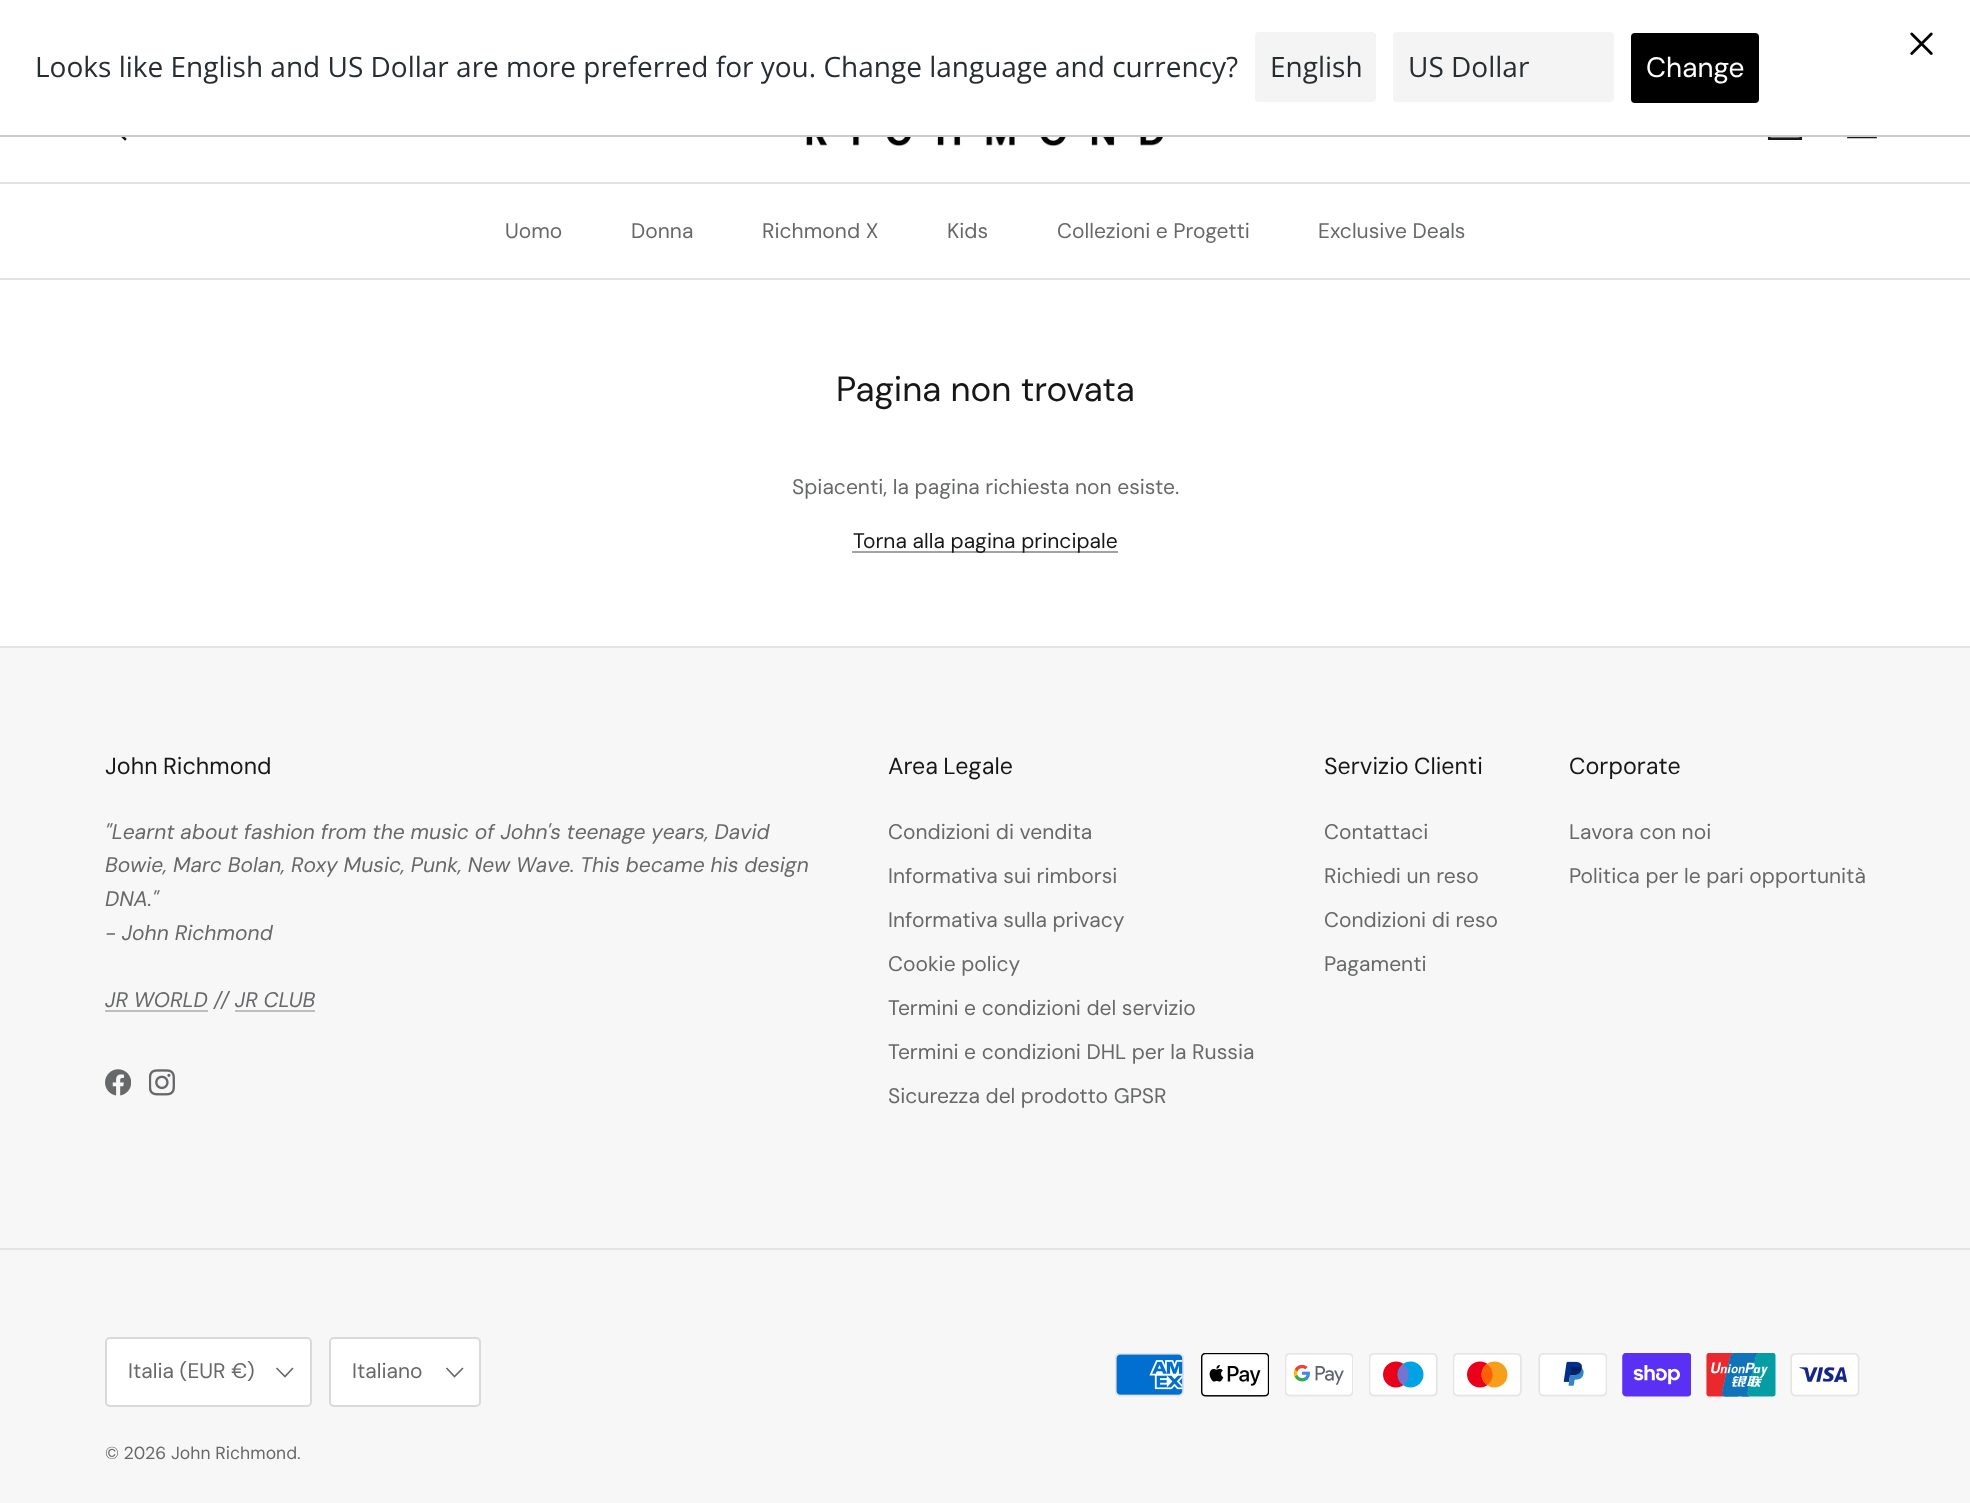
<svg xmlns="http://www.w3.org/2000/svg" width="1970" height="1503">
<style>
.a{font:28px Open Sans;fill:#272e31}
.b{font:28px 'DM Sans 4';fill:#fff}
.c{font:21px 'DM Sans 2';fill:#676869}
.d{font:35px DM Sans;fill:#171717}
.e{font:21px 'DM Sans 2';fill:#171717}
.f{font:23.25px 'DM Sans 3';fill:#171717}
.g{font:italic 21px DM Sans;fill:#676869}
.h{font:17.5px 'DM Sans 3';fill:#676869}
</style>
<rect width="100%" height="100%" fill="#fff"/>
<path fill="none" stroke="#171717" stroke-width="2.6" stroke-linecap="square" d="M117 131l8 8"/>
<path fill="none" stroke="#171717" stroke-width="2.6" d="M1850.5 113h23l2 24h-27z"/>
<path fill="#fff" d="M115 111h1762v24H115z"/>
<path fill="#ccc" d="M0 135h1970v2H0z"/>
<image href="1.png" x="1910" y="32" width="23" height="23"/>
<rect fill="#f4f4f4" x="1255" y="32" width="121" height="70" rx="4"/>
<rect fill="#f4f4f4" x="1393" y="32" width="221" height="70" rx="4"/>
<rect fill="#000" x="1631" y="33" width="128" height="70" rx="4"/>
<path fill="#e2e2e2" d="M0 182h1970v2H0z"/>
<image href="2.png" x="1767" y="137" width="36" height="3"/>
<image href="3.png" x="806" y="137" width="357" height="10"/>
<path fill="#e2e2e2" d="M0 278h1970v2H0z"/>
<path fill="#a2a2a2" d="M852 551h266v2H852z"/>
<path fill="#f7f7f8" d="M0 648h1970v855H0z"/>
<path fill="#e4e4e4" d="M0 646h1970v2H0z"/>
<path fill="#bdbebf" d="M105 1010h103v2H105z"/>
<path fill="#bdbebf" d="M235 1010h80v2H235z"/>
<image href="4.png" x="105" y="1069" width="26" height="27"/>
<image href="5.png" x="149" y="1069" width="26" height="27"/>
<path fill="#e4e4e4" d="M0 1248h1970v2H0z"/>
<rect fill="#fff" stroke="#d9d9da" stroke-width="2" x="106" y="1338" width="205" height="68" rx="4"/>
<path fill="none" stroke="#676869" stroke-width="1.6" d="M293 1368l-8 8.5l-8.5-8.5"/>
<rect fill="#fff" stroke="#d9d9da" stroke-width="2" x="330" y="1338" width="150" height="68" rx="4"/>
<path fill="none" stroke="#676869" stroke-width="1.6" d="M463 1368l-8.5 8.5l-8-8.5"/>
<image href="6.png" x="1115" y="1353" width="69" height="44"/>
<image href="7.png" x="1201" y="1353" width="68" height="44"/>
<image href="8.png" x="1285" y="1353" width="68" height="44"/>
<image href="9.png" x="1369" y="1353" width="69" height="44"/>
<image href="10.png" x="1453" y="1353" width="69" height="44"/>
<image href="11.png" x="1538" y="1353" width="69" height="44"/>
<image href="12.png" x="1622" y="1353" width="69" height="44"/>
<image href="13.png" x="1706" y="1353" width="70" height="44"/>
<image href="14.png" x="1790" y="1353" width="70" height="44"/>
<text class="a" x="35" y="77">Looks like English and US Dollar are more preferred for you. Change language and currency?</text>
<text class="a" x="1270" y="77">English</text>
<text class="a" x="1408" y="77">US Dollar</text>
<text class="b" x="1646" y="77">Change</text>
<text class="c" x="505" y="238">Uomo</text>
<text class="c" x="631" y="238">Donna</text>
<text class="c" x="762" y="238">Richmond X</text>
<text class="c" x="947" y="238">Kids</text>
<text class="c" x="1057" y="238">Collezioni e Progetti</text>
<text class="c" x="1318" y="238">Exclusive Deals</text>
<text class="d" x="836" y="401">Pagina non trovata</text>
<text class="c" x="792" y="494">Spiacenti, la pagina richiesta non esiste.</text>
<text class="e" x="853" y="548">Torna alla pagina principale</text>
<text class="f" x="105" y="774" word-spacing="-1">John Richmond</text>
<text class="g" x="105" y="839">"Learnt about fashion from the music of John's teenage years, David</text>
<text class="g" x="105" y="872">Bowie, Marc Bolan, Roxy Music, Punk, New Wave. This became his design</text>
<text class="g" x="105" y="906">DNA."</text>
<text class="g" x="105" y="940">- John Richmond</text>
<text class="g" x="105" y="1007">JR WORLD // JR CLUB</text>
<text class="f" x="888" y="774" word-spacing="-1">Area Legale</text>
<text class="c" x="888" y="839">Condizioni di vendita</text>
<text class="c" x="888" y="883">Informativa sui rimborsi</text>
<text class="c" x="888" y="927">Informativa sulla privacy</text>
<text class="c" x="888" y="971">Cookie policy</text>
<text class="c" x="888" y="1015">Termini e condizioni del servizio</text>
<text class="c" x="888" y="1059">Termini e condizioni DHL per la Russia</text>
<text class="c" x="888" y="1103">Sicurezza del prodotto GPSR</text>
<text class="f" x="1324" y="774" word-spacing="-1">Servizio Clienti</text>
<text class="c" x="1324" y="839">Contattaci</text>
<text class="c" x="1324" y="883">Richiedi un reso</text>
<text class="c" x="1324" y="927">Condizioni di reso</text>
<text class="c" x="1324" y="971">Pagamenti</text>
<text class="f" x="1569" y="774">Corporate</text>
<text class="c" x="1569" y="839">Lavora con noi</text>
<text class="c" x="1569" y="883">Politica per le pari opportunità</text>
<text class="c" x="128" y="1378">Italia (EUR €)</text>
<text class="c" x="352" y="1378">Italiano</text>
<text class="h" x="105" y="1459">© 2026 John Richmond.</text>
</svg>
